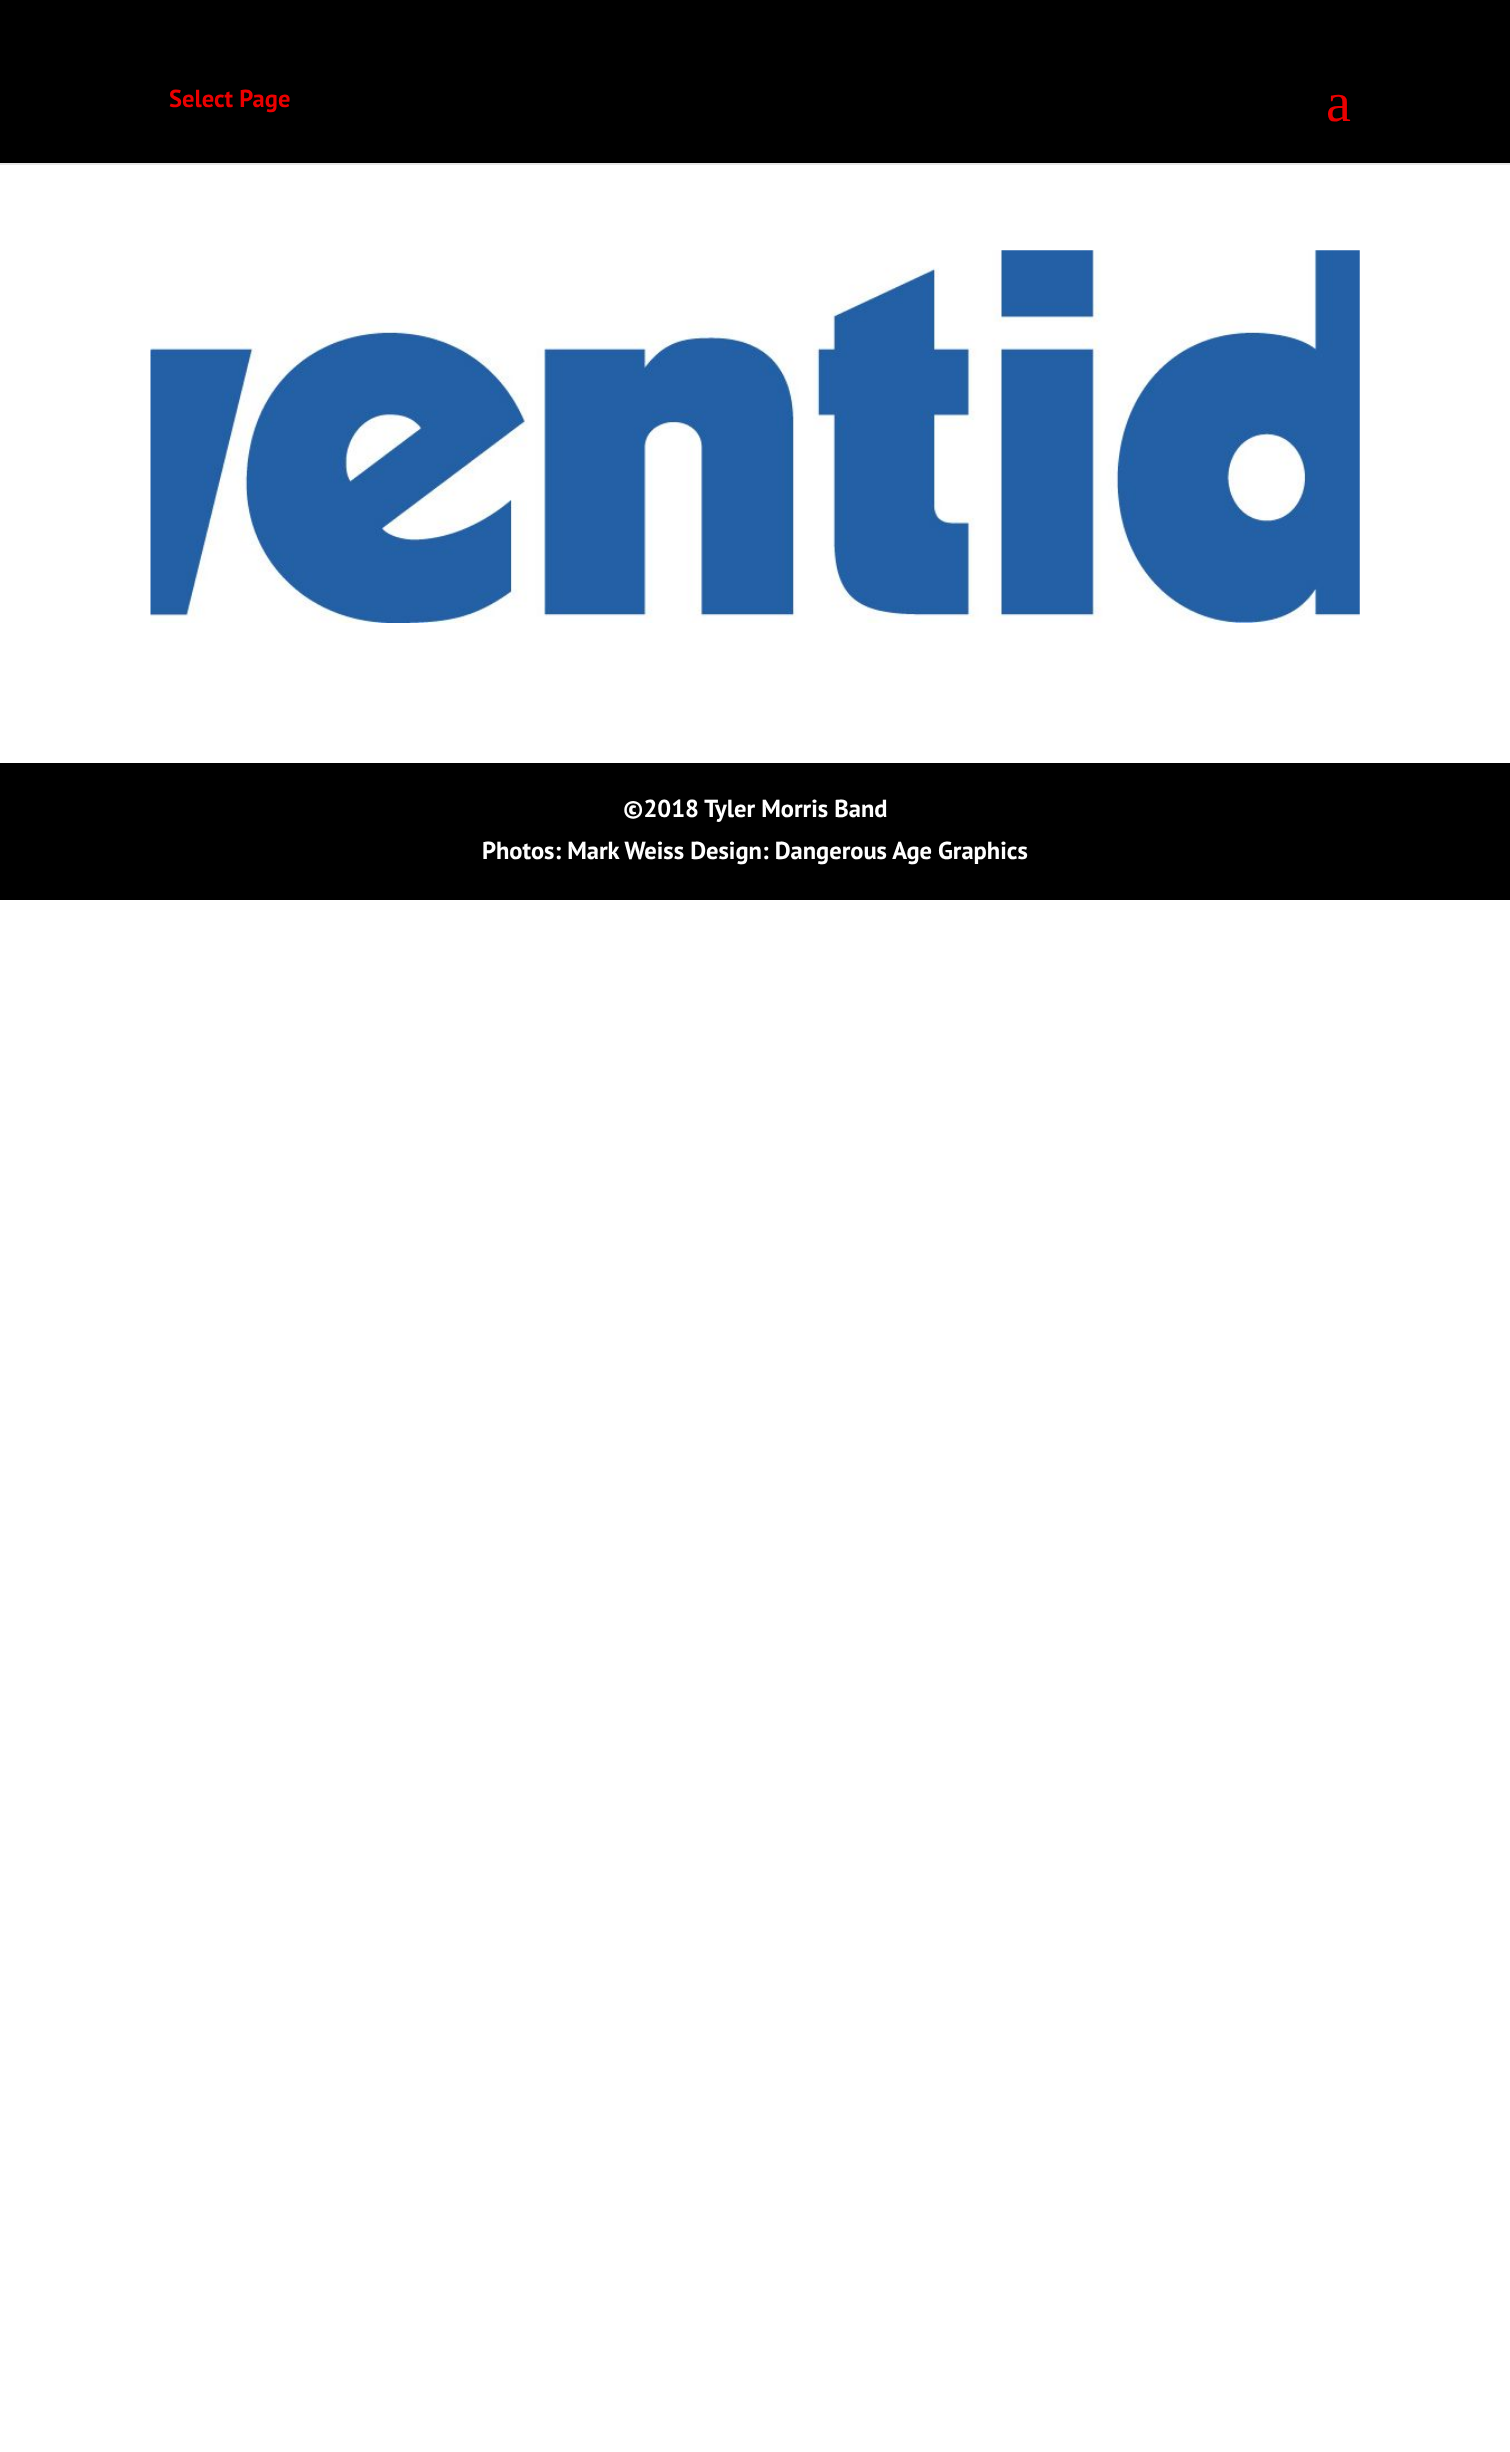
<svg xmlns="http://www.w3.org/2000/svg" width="1510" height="2452">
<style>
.a{font:bold 24.5px PT Sans;fill:#ea0000}
.b{font:56px Liberation Serif;fill:#ea0000}
.c{font:bold 24.5px PT Sans;fill:#fff}
</style>
<rect width="100%" height="100%" fill="#fff"/>
<path fill="#e6e6e6" d="M0 163h1510v2H0z"/>
<path fill="#000" d="M0 0h1510v163H0z"/>
<image href="1.png" x="150" y="250" width="1210" height="373"/>
<path fill="#000" d="M0 763h1510v137H0z"/>
<text class="a" x="169" y="107">Select Page</text>
<text class="b" x="1326" y="121">a</text>
<text class="c" x="623" y="817">©2018 Tyler Morris Band</text>
<text class="c" x="482" y="859">Photos: Mark Weiss Design: Dangerous Age Graphics</text>
</svg>
